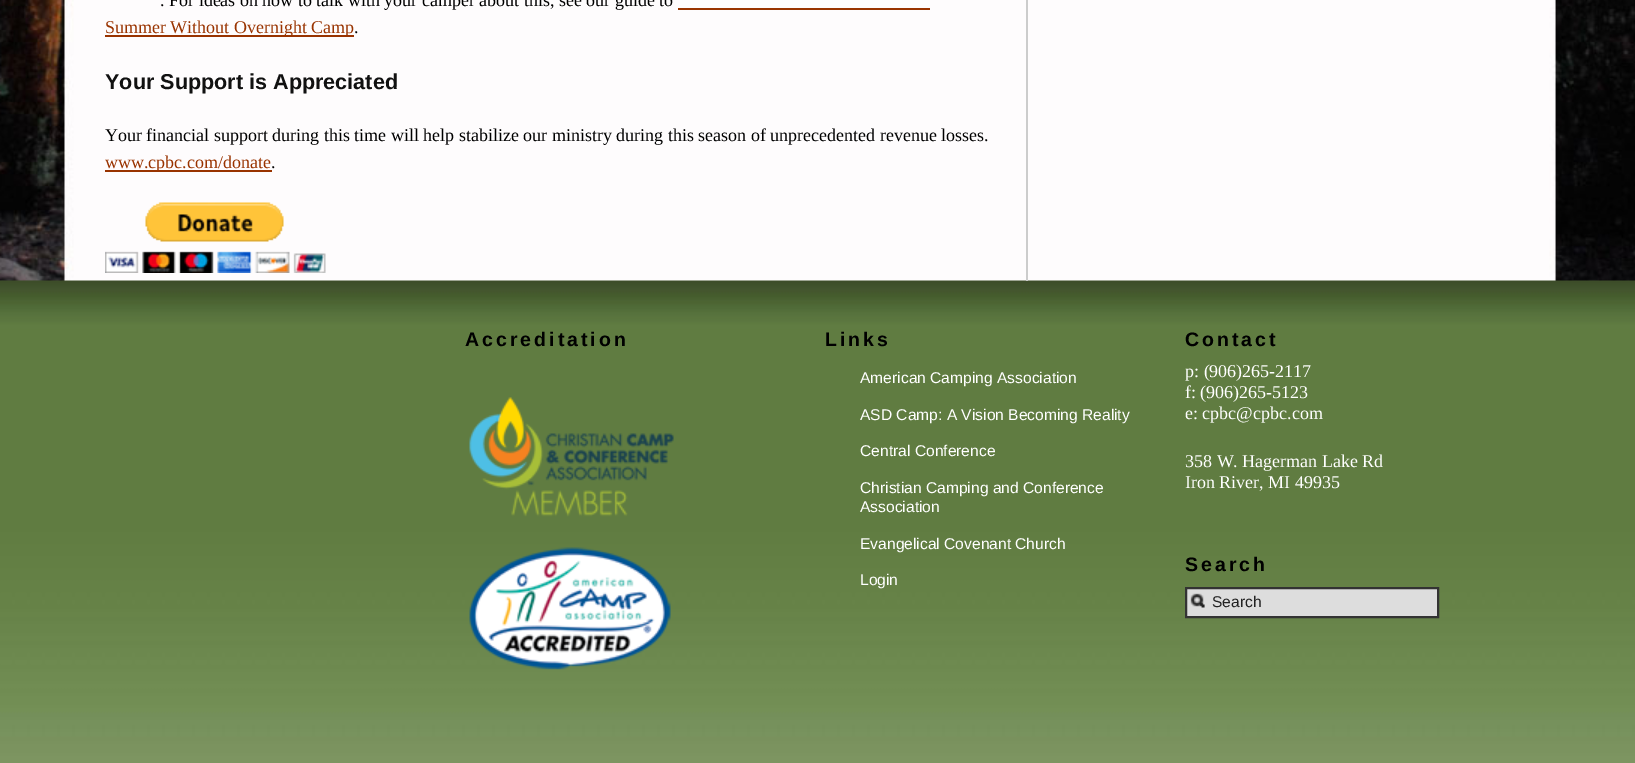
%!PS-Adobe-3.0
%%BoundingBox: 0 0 1635 763
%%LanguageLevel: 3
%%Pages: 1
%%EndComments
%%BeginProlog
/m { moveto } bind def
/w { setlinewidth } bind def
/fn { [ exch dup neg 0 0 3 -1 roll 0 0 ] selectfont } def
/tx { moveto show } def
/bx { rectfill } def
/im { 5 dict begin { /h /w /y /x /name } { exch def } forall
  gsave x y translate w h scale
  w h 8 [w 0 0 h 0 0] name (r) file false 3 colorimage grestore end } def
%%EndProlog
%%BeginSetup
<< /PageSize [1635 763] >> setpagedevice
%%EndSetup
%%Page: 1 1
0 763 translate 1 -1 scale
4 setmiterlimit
1 setgray
0 0 1635 763 bx
(image0.raw) 0 0 1635 281 im
(image2.raw) 0 280 1635 483 im
0.8 setgray
1026 0 2 281 bx
/LiberationSerif-Regular 18 fn
0 setgray
(. For ideas on how to talk with your camper about this, see our guide to) 160 6 tx
0.6 0.2 0 setrgbcolor
105 35 249 2 bx
(Summer Without Overnight Camp) 105 33 tx
678 8 252 2 bx
0 setgray
(.) 354 33 tx
/LiberationSans-Bold 21.6 fn
0.067 setgray
(Your Support is Appreciated) 105 89 tx
/LiberationSerif-Regular 18 fn
0 setgray
(Your financial support during this time will help stabilize our ministry during this season of unprecedented revenue losses.) 105 141 tx
0.6 0.2 0 setrgbcolor
105 170 167 2 bx
(www.cpbc.com/donate) 105 168 tx
0 setgray
(.) 271 168 tx
(image1.raw) 105 202 221 71 im
/LiberationSans-Bold 19.5 fn
465 346 m 3 0 (Accreditation) ashow
(image3.raw) 469 397 205 273 im
825 346 m 3 0 (Links) ashow
/LiberationSans-Regular 15.6 fn
1 setgray
(American Camping Association) 860 383 tx
(ASD Camp: A Vision Becoming Reality) 860 420 tx
(Central Conference) 860 456 tx
(Christian Camping and Conference) 860 493 tx
(Association) 860 512 tx
(Evangelical Covenant Church) 860 549 tx
(Login) 860 585 tx
/LiberationSans-Bold 19.5 fn
0 setgray
1185 346 m 3 0 (Contact) ashow
/LiberationSerif-Regular 18 fn
1 setgray
(p: \(906\)265-2117) 1185 377 tx
(f: \(906\)265-5123) 1185 398 tx
(e: cpbc@cpbc.com) 1185 419 tx
(358 W. Hagerman Lake Rd) 1185 467 tx
(Iron River, MI 49935) 1185 488 tx
/LiberationSans-Bold 19.5 fn
0 setgray
1185 571 m 3 0 (Search) ashow
0.867 setgray
1187 589 250 27 bx
(image4.raw) 1190 593 15 15 im
0.2 setgray
2 w
1186 588 252 29 rectstroke
/LiberationSans-Regular 15.6 fn
0.133 setgray
(Search) 1212 607 tx
showpage
%%EOF
